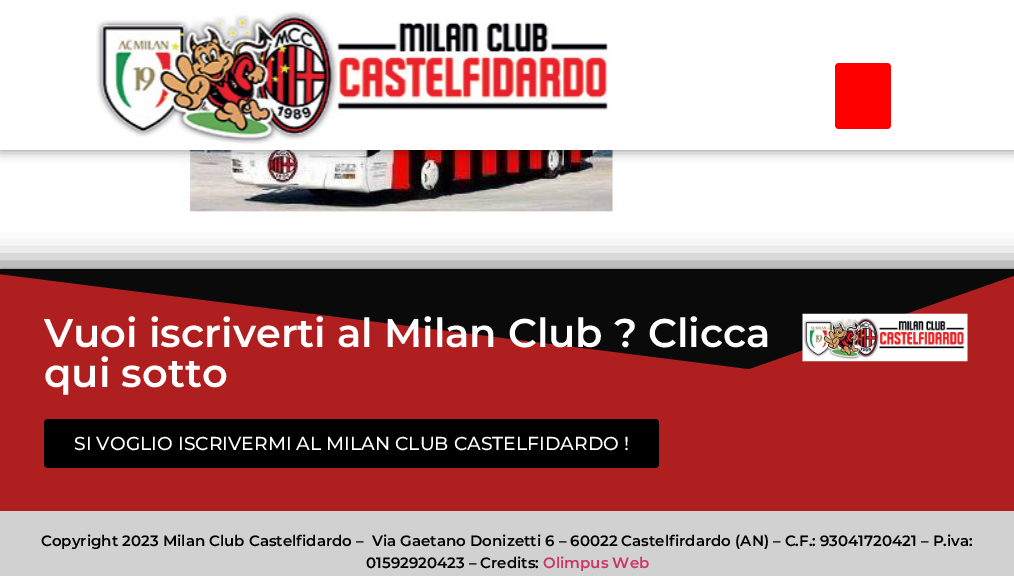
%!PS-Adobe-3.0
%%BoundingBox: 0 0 1014 576
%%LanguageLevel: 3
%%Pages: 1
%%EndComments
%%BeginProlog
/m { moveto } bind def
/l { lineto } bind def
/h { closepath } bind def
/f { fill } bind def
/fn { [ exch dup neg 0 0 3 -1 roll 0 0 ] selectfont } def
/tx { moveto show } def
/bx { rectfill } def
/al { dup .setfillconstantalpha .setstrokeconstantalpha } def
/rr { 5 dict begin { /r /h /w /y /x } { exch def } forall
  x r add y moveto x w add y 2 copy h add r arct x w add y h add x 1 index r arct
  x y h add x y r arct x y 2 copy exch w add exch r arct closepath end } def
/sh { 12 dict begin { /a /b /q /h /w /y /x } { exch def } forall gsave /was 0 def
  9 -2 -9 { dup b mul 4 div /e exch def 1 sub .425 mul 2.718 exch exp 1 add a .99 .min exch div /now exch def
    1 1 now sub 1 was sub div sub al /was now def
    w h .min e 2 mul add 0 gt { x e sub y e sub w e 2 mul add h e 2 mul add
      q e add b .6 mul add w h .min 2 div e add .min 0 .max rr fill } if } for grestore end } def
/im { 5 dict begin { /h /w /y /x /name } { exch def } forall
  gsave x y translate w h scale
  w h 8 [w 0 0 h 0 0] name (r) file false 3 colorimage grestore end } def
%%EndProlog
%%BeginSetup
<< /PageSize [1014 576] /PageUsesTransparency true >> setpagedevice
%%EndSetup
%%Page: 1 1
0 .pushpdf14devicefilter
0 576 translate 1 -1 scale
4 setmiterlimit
1 setgray
0 0 1014 576 bx
(image1.raw) 172 150 442 62 im
0 setgray
0 0 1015 150 0 6 0.5 sh
1 setgray
0 0 1014 150 bx
(image0.raw) 96 11 513 134 im
1 0 0 setrgbcolor
835 63 56 66 4 rr f
0 setgray
-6 264 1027 254 0 14.5 0.5 sh
0.69 0.122 0.122 setrgbcolor
0 274 1014 237 bx
0.039 setgray
749 369 m 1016 275 l 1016 269 l -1 269 l -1 274 l h f
/Montserrat-SemiBold 40 fn
1 setgray
(Vuoi iscriverti al Milan Club ? Clicca) 44 347 tx
(qui sotto) 44 387 tx
0 setgray
44 419 615 49 4 rr f
/Montserrat-Medium 18.75 fn
1 setgray
(SI VOGLIO ISCRIVERMI AL MILAN CLUB CASTELFIDARDO !) 74 450 tx
(image2.raw) 802 313 166 49 im
0.82 setgray
0 511 1014 65 bx
/Montserrat-SemiBold 15 fn
0 setgray
(Copyright 2023 Milan Club Castelfidardo –  Via Gaetano Donizetti 6 – 60022 Castelfirdardo \(AN\) – C.F.: 93041720421 – P.iva:) 41 546 tx
(01592920423 – Credits:) 366 568 tx
0.8 0.2 0.4 setrgbcolor
(Olimpus Web) 543 568 tx
.poppdf14devicefilter showpage
%%EOF
